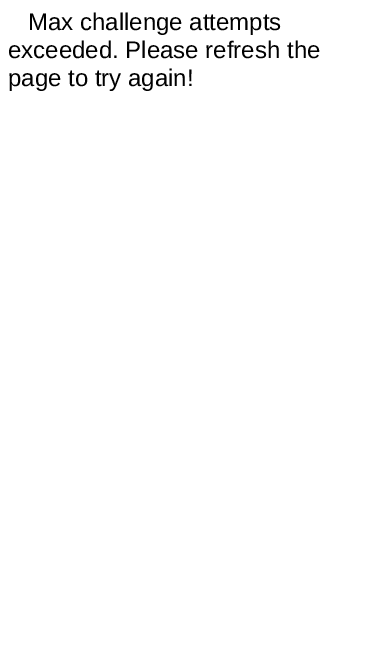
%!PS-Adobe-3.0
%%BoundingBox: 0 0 371 662
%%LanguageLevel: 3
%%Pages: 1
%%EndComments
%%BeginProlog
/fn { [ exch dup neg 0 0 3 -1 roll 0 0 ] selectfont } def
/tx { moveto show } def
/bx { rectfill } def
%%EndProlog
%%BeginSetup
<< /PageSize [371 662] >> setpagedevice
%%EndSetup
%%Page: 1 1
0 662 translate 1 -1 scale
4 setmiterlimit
1 setgray
0 0 371 662 bx
/LiberationSans-Regular 24 fn
0 setgray
(Max challenge attempts) 28 30 tx
(exceeded. Please refresh the) 8 58 tx
(page to try again!) 8 86 tx
showpage
%%EOF
